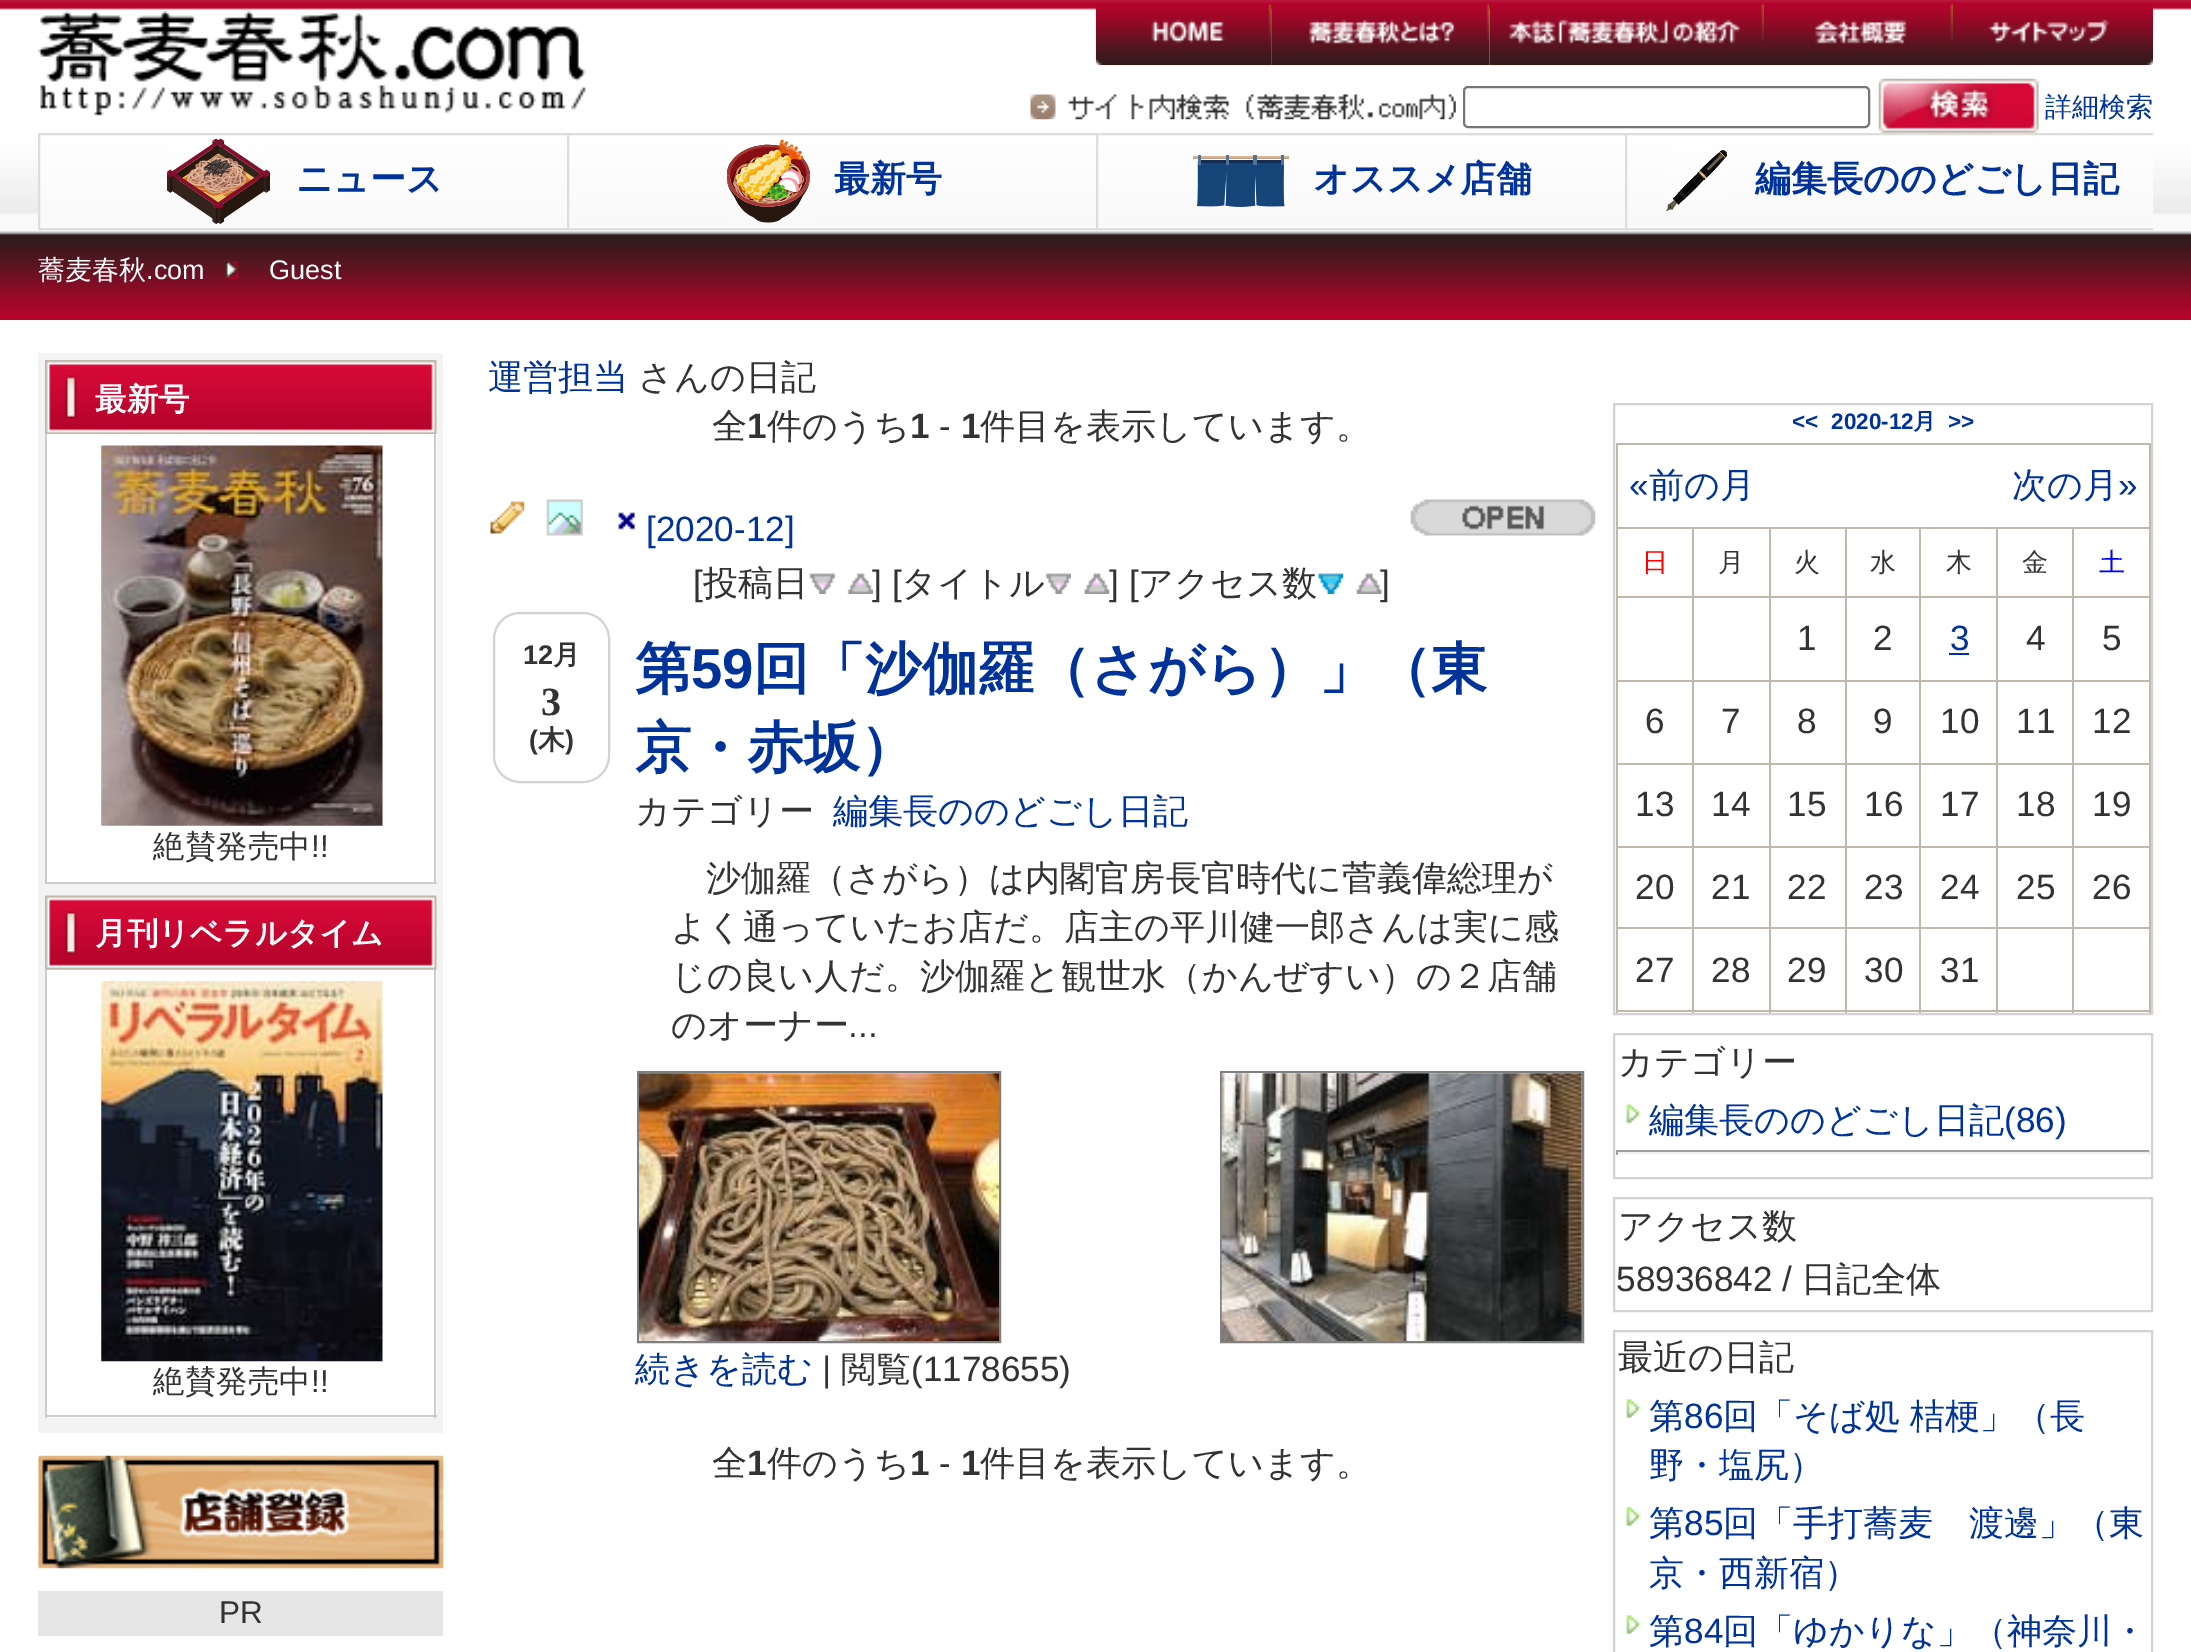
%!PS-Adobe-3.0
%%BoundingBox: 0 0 2191 1652
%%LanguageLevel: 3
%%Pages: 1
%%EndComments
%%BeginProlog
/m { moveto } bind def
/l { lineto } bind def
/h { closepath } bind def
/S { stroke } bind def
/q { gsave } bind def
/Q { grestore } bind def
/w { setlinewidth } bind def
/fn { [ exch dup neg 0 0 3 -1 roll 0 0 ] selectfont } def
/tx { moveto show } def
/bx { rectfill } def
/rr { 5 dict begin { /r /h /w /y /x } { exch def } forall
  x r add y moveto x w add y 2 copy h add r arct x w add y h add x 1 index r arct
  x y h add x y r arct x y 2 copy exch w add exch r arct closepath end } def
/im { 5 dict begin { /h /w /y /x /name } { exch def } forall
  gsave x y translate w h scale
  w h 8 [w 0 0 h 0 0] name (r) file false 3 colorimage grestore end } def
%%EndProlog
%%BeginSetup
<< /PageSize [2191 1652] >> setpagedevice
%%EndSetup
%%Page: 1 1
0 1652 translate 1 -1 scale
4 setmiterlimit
1 setgray
0 0 2191 1652 bx
0.702 0.016 0.169 setrgbcolor
0 314 2191 6 bx
(image0.raw) 0 0 2191 314 im
(image1.raw) 38 11 548 105 im
(image2.raw) 1095 4 177 62 im
(image3.raw) 1271 4 219 62 im
(image4.raw) 1489 4 275 62 im
(image5.raw) 1764 4 189 62 im
(image6.raw) 1953 4 200 62 im
(image7.raw) 1030 94 426 26 im
0.463 setgray
2 w
1464 87 405 40 4 rr S
0.937 setgray
1879 79 160 54 bx
(image8.raw) 1878 78 161 55 im
/WenQuanYiZenHei-Medium 27 fn
0 0.2 0.6 setrgbcolor
(詳細検索) 2045 116 tx
q 40 155 m 567 155 l 567 215 l 40 215 l h clip newpath
<< /ShadingType 2 /ColorSpace /DeviceRGB /Coords [305 135 305 227] /Extend [true true] /Function << /FunctionType 2 /Domain [0 1] /C0 [1 1 1] /C1 [0.976 0.976 0.976] /N 1 >> >> shfill Q
q 38 227 m 572 227 l 572 228 l 38 228 l h clip newpath
<< /ShadingType 2 /ColorSpace /DeviceRGB /Coords [305 227 305 320] /Extend [true true] /Function << /FunctionType 2 /Domain [0 1] /C0 [1 1 1] /C1 [0.976 0.976 0.976] /N 1 >> >> shfill Q
0.867 setgray
39 134 532 95 rectstroke
(image9.raw) 167 138 103 86 im
/WenQuanYiZenHei-Bold 36 fn
0 0.2 0.6 setrgbcolor
(ニュース) 296 191 tx
q 569 135 m 1096 135 l 1096 227 l 569 227 l h clip newpath
<< /ShadingType 2 /ColorSpace /DeviceRGB /Coords [834 135 834 227] /Extend [true true] /Function << /FunctionType 2 /Domain [0 1] /C0 [1 1 1] /C1 [0.976 0.976 0.976] /N 1 >> >> shfill Q
q 567 227 m 1100 227 l 1100 228 l 567 228 l h clip newpath
<< /ShadingType 2 /ColorSpace /DeviceRGB /Coords [834 227 834 320] /Extend [true true] /Function << /FunctionType 2 /Domain [0 1] /C0 [1 1 1] /C1 [0.976 0.976 0.976] /N 1 >> >> shfill Q
0.867 setgray
568 134 531 95 rectstroke
(image10.raw) 727 139 83 84 im
0 0.2 0.6 setrgbcolor
(最新号) 834 191 tx
q 1098 135 m 1625 135 l 1625 227 l 1098 227 l h clip newpath
<< /ShadingType 2 /ColorSpace /DeviceRGB /Coords [1362 135 1362 227] /Extend [true true] /Function << /FunctionType 2 /Domain [0 1] /C0 [1 1 1] /C1 [0.976 0.976 0.976] /N 1 >> >> shfill Q
q 1096 227 m 1629 227 l 1629 228 l 1096 228 l h clip newpath
<< /ShadingType 2 /ColorSpace /DeviceRGB /Coords [1362 227 1362 320] /Extend [true true] /Function << /FunctionType 2 /Domain [0 1] /C0 [1 1 1] /C1 [0.976 0.976 0.976] /N 1 >> >> shfill Q
0.867 setgray
1097 134 531 95 rectstroke
(image11.raw) 1193 155 96 52 im
0 0.2 0.6 setrgbcolor
(オススメ店舗) 1313 191 tx
q 1627 135 m 2153 135 l 2153 227 l 1627 227 l h clip newpath
<< /ShadingType 2 /ColorSpace /DeviceRGB /Coords [1891 135 1891 227] /Extend [true true] /Function << /FunctionType 2 /Domain [0 1] /C0 [1 1 1] /C1 [0.976 0.976 0.976] /N 1 >> >> shfill Q
q 1625 227 m 2153 227 l 2153 228 l 1625 228 l h clip newpath
<< /ShadingType 2 /ColorSpace /DeviceRGB /Coords [1891 227 1891 320] /Extend [true true] /Function << /FunctionType 2 /Domain [0 1] /C0 [1 1 1] /C1 [0.976 0.976 0.976] /N 1 >> >> shfill Q
q
38 0 2115 313 rectclip
0.867 setgray
1626 134 531 95 rectstroke
Q
(image12.raw) 1666 150 62 61 im
(編集長ののどごし日記) 1755 191 tx
/WenQuanYiZenHei-Medium 27 fn
1 setgray
(蕎麦春秋) 38 279 tx
/LiberationSans-Regular 27 fn
(.com) 146 279 tx
(image13.raw) 225 261 14 18 im
(Guest) 269 279 tx
0.953 setgray
38 353 405 1080 bx
(image14.raw) 45 360 392 74 im
/WenQuanYiZenHei-Bold 31.5 fn
1 setgray
(最新号) 95 410 tx
47 434 390 448 bx
0.8 setgray
434 434 2 450 bx
45 882 392 2 bx
45 434 2 450 bx
(image15.raw) 101 445 282 381 im
/WenQuanYiZenHei-Medium 31.5 fn
0.2 setgray
(絶賛発売中) 153 857 tx
/LiberationSans-Regular 31.5 fn
(!!) 311 857 tx
(image16.raw) 45 895 392 75 im
/WenQuanYiZenHei-Bold 31.5 fn
1 setgray
(月刊リベラルタイム) 95 944 tx
47 970 390 448 bx
0.8 setgray
434 970 2 448 bx
45 1415 392 2 bx
45 970 2 448 bx
(image17.raw) 101 981 282 381 im
/WenQuanYiZenHei-Medium 31.5 fn
0.2 setgray
(絶賛発売中) 153 1392 tx
/LiberationSans-Regular 31.5 fn
(!!) 311 1392 tx
(image18.raw) 38 1455 406 114 im
0.902 setgray
38 1591 405 45 bx
0.2 setgray
(PR) 219 1623 tx
/WenQuanYiZenHei-Medium 35.1 fn
0 0.2 0.6 setrgbcolor
(運営担当) 488 389 tx
0.2 setgray
(さんの日記) 638 389 tx
(全) 712 438 tx
/LiberationSans-Bold 35.1 fn
(1) 747 438 tx
/WenQuanYiZenHei-Medium 35.1 fn
(件のうち) 767 438 tx
/LiberationSans-Bold 35.1 fn
(1) 910 438 tx
/LiberationSans-Regular 35.1 fn
(-) 939 438 tx
/LiberationSans-Bold 35.1 fn
(1) 961 438 tx
/WenQuanYiZenHei-Medium 35.1 fn
(件目を表示しています。) 980 438 tx
(image19.raw) 490 501 35 33 im
(image20.raw) 546 499 37 37 im
(image21.raw) 618 512 18 18 im
/LiberationSans-Regular 35.1 fn
0 0.2 0.6 setrgbcolor
([2020-12]) 646 541 tx
(image22.raw) 1410 499 186 37 im
0.2 setgray
([) 693 595 tx
/WenQuanYiZenHei-Medium 35.1 fn
(投稿日) 703 595 tx
(image23.raw) 809 573 26 21 im
/LiberationSans-Regular 35.1 fn
(] [) 872 595 tx
(image24.raw) 847 573 26 21 im
/WenQuanYiZenHei-Medium 35.1 fn
(タイトル) 901 595 tx
(image25.raw) 1045 573 26 21 im
/LiberationSans-Regular 35.1 fn
(] [) 1109 595 tx
(image26.raw) 1084 573 26 21 im
/WenQuanYiZenHei-Medium 35.1 fn
(アクセス数) 1138 595 tx
(image27.raw) 1318 573 26 21 im
/LiberationSans-Regular 35.1 fn
(]) 1380 595 tx
(image28.raw) 1356 573 26 21 im
0.827 setgray
494 613 115 169 26 rr S
/LiberationSans-Bold 27 fn
0.2 setgray
(12) 523 664 tx
/WenQuanYiZenHei-Bold 27 fn
(月) 553 664 tx
/LiberationSerif-Bold 40 fn
(3) 541 715 tx
/LiberationSans-Bold 27 fn
(\() 529 749 tx
/WenQuanYiZenHei-Bold 27 fn
(木) 538 749 tx
/LiberationSans-Bold 27 fn
(\)) 565 749 tx
/WenQuanYiZenHei-Bold 56.2 fn
0 0.2 0.6 setrgbcolor
(第) 635 688 tx
/LiberationSans-Bold 56.2 fn
(59) 691 688 tx
/WenQuanYiZenHei-Bold 56.2 fn
(回「沙伽羅（さがら）」（東) 753 688 tx
(京・赤坂）) 635 767 tx
/WenQuanYiZenHei-Medium 35.1 fn
0.2 setgray
(カテゴリー) 635 823 tx
0 0.2 0.6 setrgbcolor
(編集長ののどごし日記) 833 823 tx
0.2 setgray
(沙伽羅（さがら）は内閣官房長官時代に菅義偉総理が) 706 890 tx
(よく通っていたお店だ。店主の平川健一郎さんは実に感) 671 939 tx
(じの良い人だ。沙伽羅と観世水（かんぜすい）の２店舗) 671 988 tx
(のオーナー) 671 1037 tx
/LiberationSans-Regular 35.1 fn
(...) 848 1037 tx
0.502 setgray
638 1072 362 270 rectstroke
(image29.raw) 639 1073 360 268 im
1221 1072 362 270 rectstroke
(image30.raw) 1221 1073 361 268 im
/WenQuanYiZenHei-Medium 35.1 fn
0 0.2 0.6 setrgbcolor
(続きを読む) 635 1381 tx
/LiberationSans-Regular 35.1 fn
0.2 setgray
(|) 822 1381 tx
/WenQuanYiZenHei-Medium 35.1 fn
(閲覧) 841 1381 tx
/LiberationSans-Regular 35.1 fn
(\(1178655\)) 911 1381 tx
/WenQuanYiZenHei-Medium 35.1 fn
(全) 712 1475 tx
/LiberationSans-Bold 35.1 fn
(1) 747 1475 tx
/WenQuanYiZenHei-Medium 35.1 fn
(件のうち) 767 1475 tx
/LiberationSans-Bold 35.1 fn
(1) 910 1475 tx
/LiberationSans-Regular 35.1 fn
(-) 939 1475 tx
/LiberationSans-Bold 35.1 fn
(1) 961 1475 tx
/WenQuanYiZenHei-Medium 35.1 fn
(件目を表示しています。) 980 1475 tx
0.827 setgray
1614 404 538 610 rectstroke
/LiberationSans-Bold 22.5 fn
0 0.2 0.6 setrgbcolor
(<<) 1792 429 tx
(2020-12) 1831 429 tx
/WenQuanYiZenHei-Bold 22.5 fn
(月) 1913 429 tx
/LiberationSans-Bold 22.5 fn
(>>) 1948 429 tx
0.757 0.718 0.671 setrgbcolor
1616 443 535 2 bx
2072 527 79 2 bx
2072 596 79 2 bx
2072 680 79 2 bx
2072 763 79 2 bx
2072 846 79 2 bx
2072 927 79 2 bx
2149 927 2 86 bx
2149 846 2 83 bx
2149 763 2 85 bx
2149 680 2 85 bx
2149 596 2 86 bx
2149 527 2 72 bx
2149 443 2 86 bx
2072 1010 79 2 bx
2072 927 2 86 bx
1996 927 79 2 bx
2072 846 2 83 bx
1996 846 79 2 bx
2072 763 2 85 bx
1996 763 79 2 bx
2072 680 2 85 bx
1996 680 79 2 bx
2072 596 2 86 bx
1996 596 79 2 bx
2072 527 2 72 bx
1996 527 79 2 bx
1996 1010 79 2 bx
1996 927 2 86 bx
1919 927 79 2 bx
1996 846 2 83 bx
1919 846 79 2 bx
1996 763 2 85 bx
1919 763 79 2 bx
1996 680 2 85 bx
1919 680 79 2 bx
1996 596 2 86 bx
1919 596 79 2 bx
1996 527 2 72 bx
1919 527 79 2 bx
1919 1010 79 2 bx
1919 927 2 86 bx
1845 927 77 2 bx
1919 846 2 83 bx
1845 846 77 2 bx
1919 763 2 85 bx
1845 763 77 2 bx
1919 680 2 85 bx
1845 680 77 2 bx
1919 596 2 86 bx
1845 596 77 2 bx
1919 527 2 72 bx
1845 527 77 2 bx
1845 1010 77 2 bx
1845 927 2 86 bx
1769 927 78 2 bx
1845 846 2 83 bx
1769 846 78 2 bx
1845 763 2 85 bx
1769 763 78 2 bx
1845 680 2 85 bx
1769 680 78 2 bx
1845 596 2 86 bx
1769 596 78 2 bx
1845 527 2 72 bx
1769 527 78 2 bx
1769 1010 78 2 bx
1769 927 2 86 bx
1692 927 79 2 bx
1769 846 2 83 bx
1692 846 79 2 bx
1769 763 2 85 bx
1692 763 79 2 bx
1769 680 2 85 bx
1692 680 79 2 bx
1769 596 2 86 bx
1692 596 79 2 bx
1769 527 2 72 bx
1692 527 79 2 bx
1692 1010 79 2 bx
1692 927 2 86 bx
1616 927 78 2 bx
1692 846 2 83 bx
1616 846 78 2 bx
1692 763 2 85 bx
1616 763 78 2 bx
1692 680 2 85 bx
1616 680 78 2 bx
1692 596 2 86 bx
1616 596 78 2 bx
1692 527 2 72 bx
1616 527 78 2 bx
1616 1010 78 2 bx
1616 927 2 86 bx
1616 846 2 83 bx
1616 763 2 85 bx
1616 680 2 85 bx
1616 596 2 86 bx
1616 527 2 72 bx
1616 443 2 86 bx
/LiberationSans-Regular 35.1 fn
0 0.2 0.6 setrgbcolor
(«) 1629 497 tx
/WenQuanYiZenHei-Medium 35.1 fn
(前の月) 1649 497 tx
(次の月) 2012 497 tx
/LiberationSans-Regular 35.1 fn
(») 2118 497 tx
/WenQuanYiZenHei-Medium 26 fn
1 0 0 setrgbcolor
(日) 1642 571 tx
0.2 setgray
(月) 1718 571 tx
(火) 1794 571 tx
(水) 1870 571 tx
(木) 1946 571 tx
(金) 2022 571 tx
0 0 1 setrgbcolor
(土) 2099 571 tx
/LiberationSans-Regular 35.1 fn
0.2 setgray
(1) 1797 650 tx
(2) 1873 650 tx
0 0.2 0.6 setrgbcolor
(3) 1950 650 tx
1949 653 20 2 bx
0.2 setgray
(4) 2026 650 tx
(5) 2102 650 tx
(6) 1645 733 tx
(7) 1721 733 tx
(8) 1797 733 tx
(9) 1873 733 tx
(10) 1940 733 tx
(11) 2016 733 tx
(12) 2092 733 tx
(13) 1635 816 tx
(14) 1711 816 tx
(15) 1787 816 tx
(16) 1864 816 tx
(17) 1940 816 tx
(18) 2016 816 tx
(19) 2092 816 tx
(20) 1635 899 tx
(21) 1711 899 tx
(22) 1787 899 tx
(23) 1864 899 tx
(24) 1940 899 tx
(25) 2016 899 tx
(26) 2092 899 tx
(27) 1635 982 tx
(28) 1711 982 tx
(29) 1787 982 tx
(30) 1864 982 tx
(31) 1940 982 tx
0.827 setgray
1614 1034 538 144 rectstroke
/WenQuanYiZenHei-Medium 35.1 fn
0.2 setgray
(カテゴリー) 1618 1074 tx
(image31.raw) 1626 1102 15 22 im
0 0.2 0.6 setrgbcolor
(編集長ののどごし日記) 1649 1132 tx
/LiberationSans-Regular 35.1 fn
(\(86\)) 2004 1132 tx
0.624 setgray
1616 1150 535 2 bx
0.933 setgray
2149 1150 2 5 bx
1616 1152 535 2 bx
0.624 setgray
1616 1150 2 5 bx
0.827 setgray
1614 1198 538 113 rectstroke
/WenQuanYiZenHei-Medium 35.1 fn
0.2 setgray
(アクセス数) 1618 1238 tx
/LiberationSans-Regular 35.1 fn
(58936842 /) 1616 1291 tx
/WenQuanYiZenHei-Medium 35.1 fn
(日記全体) 1801 1291 tx
0.827 setgray
1614 1331 538 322 rectstroke
0.2 setgray
(最近の日記) 1618 1369 tx
(image32.raw) 1626 1397 15 22 im
0 0.2 0.6 setrgbcolor
(第) 1649 1428 tx
/LiberationSans-Regular 35.1 fn
(86) 1684 1428 tx
/WenQuanYiZenHei-Medium 35.1 fn
1723 1428 m -1 0 32 (回「そば処 桔梗」（長) widthshow
(野・塩尻）) 1649 1477 tx
(image32.raw) 1626 1505 15 22 im
(第) 1649 1535 tx
/LiberationSans-Regular 35.1 fn
(85) 1684 1535 tx
/WenQuanYiZenHei-Medium 35.1 fn
(回「手打蕎麦　渡邊」（東) 1723 1535 tx
(京・西新宿）) 1649 1585 tx
(image32.raw) 1626 1613 15 22 im
(第) 1649 1643 tx
/LiberationSans-Regular 35.1 fn
(84) 1684 1643 tx
/WenQuanYiZenHei-Medium 35.1 fn
(回「ゆかりな」（神奈川・) 1723 1643 tx
showpage
%%EOF
